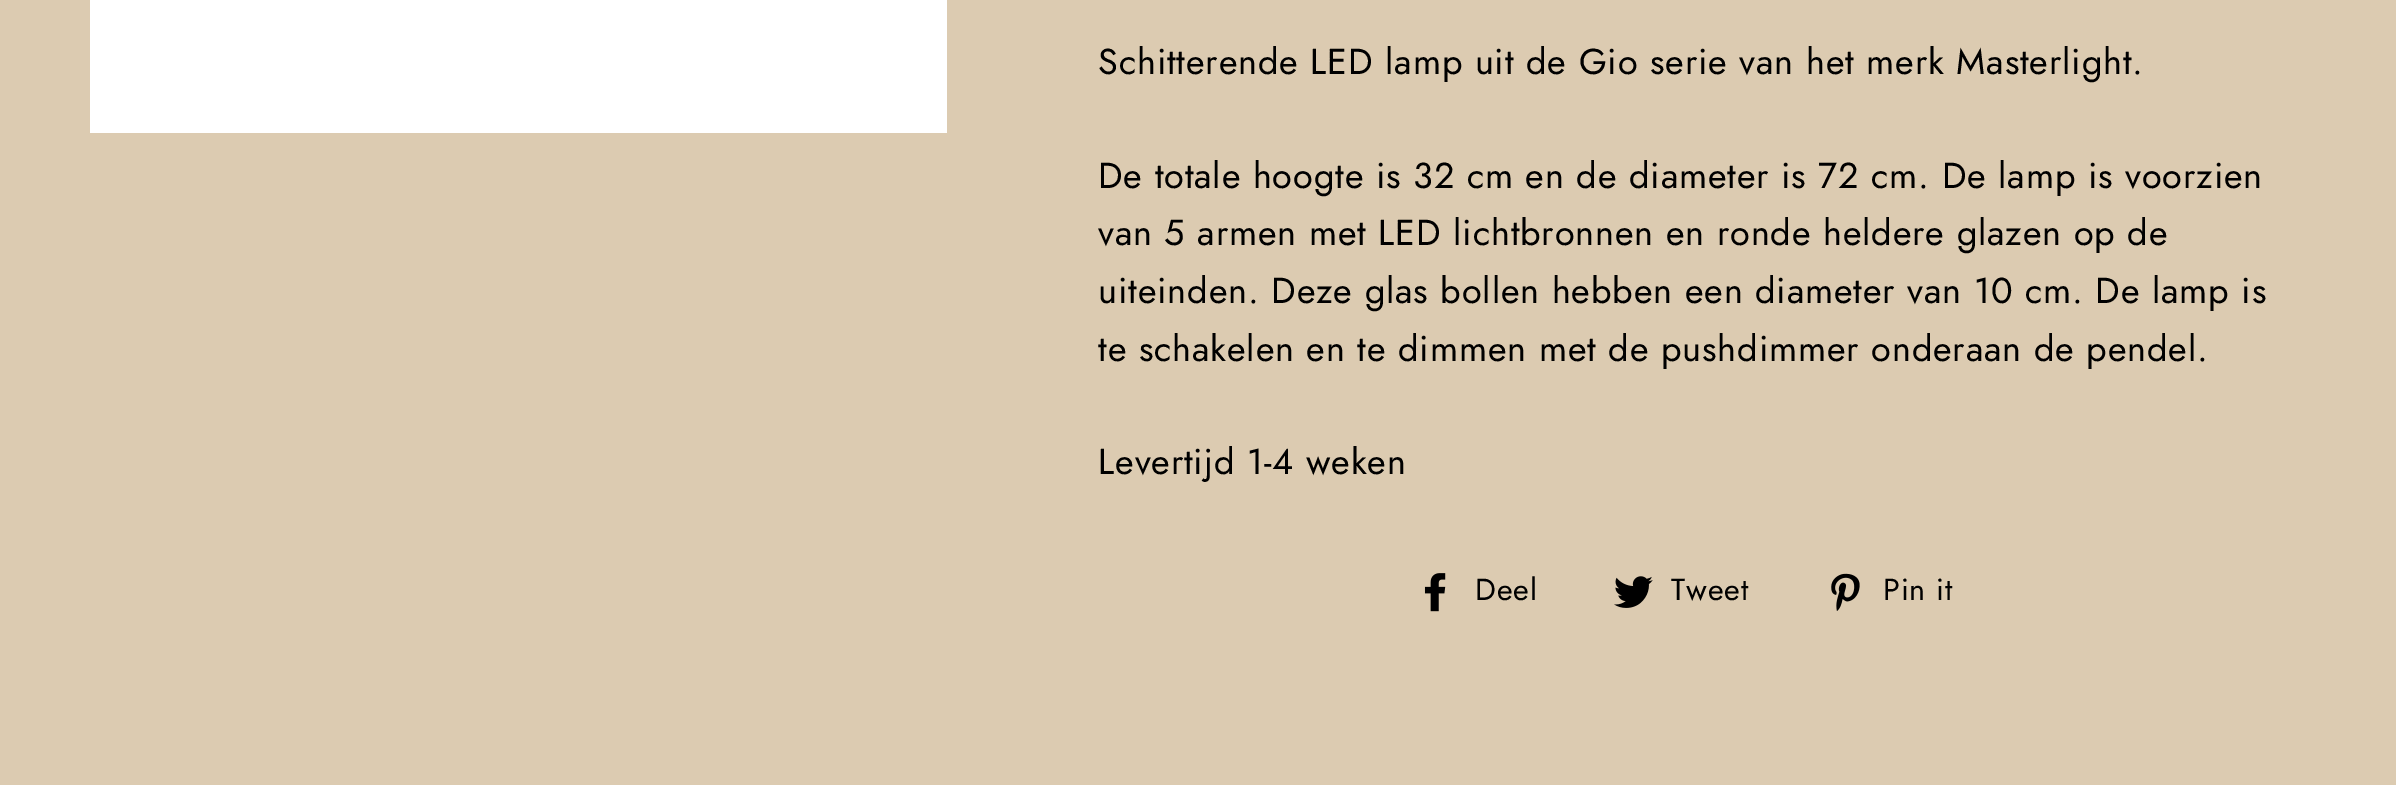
%!PS-Adobe-3.0
%%BoundingBox: 0 0 2396 800
%%LanguageLevel: 3
%%Pages: 1
%%EndComments
%%BeginProlog
/m { moveto } bind def
/fn { [ exch dup neg 0 0 3 -1 roll 0 0 ] selectfont } def
/bx { rectfill } def
/im { 5 dict begin { /h /w /y /x /name } { exch def } forall
  gsave x y translate w h scale
  w h 8 [w 0 0 h 0 0] name (r) file false 3 colorimage grestore end } def
%%EndProlog
%%BeginSetup
<< /PageSize [2396 800] >> setpagedevice
%%EndSetup
%%Page: 1 1
0 800 translate 1 -1 scale
4 setmiterlimit
0.863 0.796 0.694 setrgbcolor
0 0 2396 800 bx
1 setgray
90 0 857 133 bx
/Jost-Regular 36 fn
0 setgray
1098 74 m 0.9 0 (Schitterende LED lamp uit de Gio serie van het merk Masterlight.) ashow
1098 188 m 0.9 0 (De totale hoogte is 32 cm en de diameter is 72 cm. De lamp is voorzien) ashow
1098 245 m 0.9 0 (van 5 armen met LED lichtbronnen en ronde heldere glazen op de) ashow
1098 303 m 0.9 0 (uiteinden. Deze glas bollen hebben een diameter van 10 cm. De lamp is) ashow
1098 361 m 0.9 0 (te schakelen en te dimmen met de pushdimmer onderaan de pendel.) ashow
1098 474 m 0.9 0 (Levertijd 1-4 weken) ashow
(image0.raw) 1424 573 22 39 im
/Jost-Regular 30.5 fn
1475 600 m 0.9 0 (Deel) ashow
(image1.raw) 1614 576 39 32 im
1671 600 m 0.9 0 (Tweet) ashow
(image2.raw) 1831 573 29 38 im
1883 600 m 0.9 0 (Pin it) ashow
1 setgray
0 785 2396 15 bx
showpage
%%EOF
